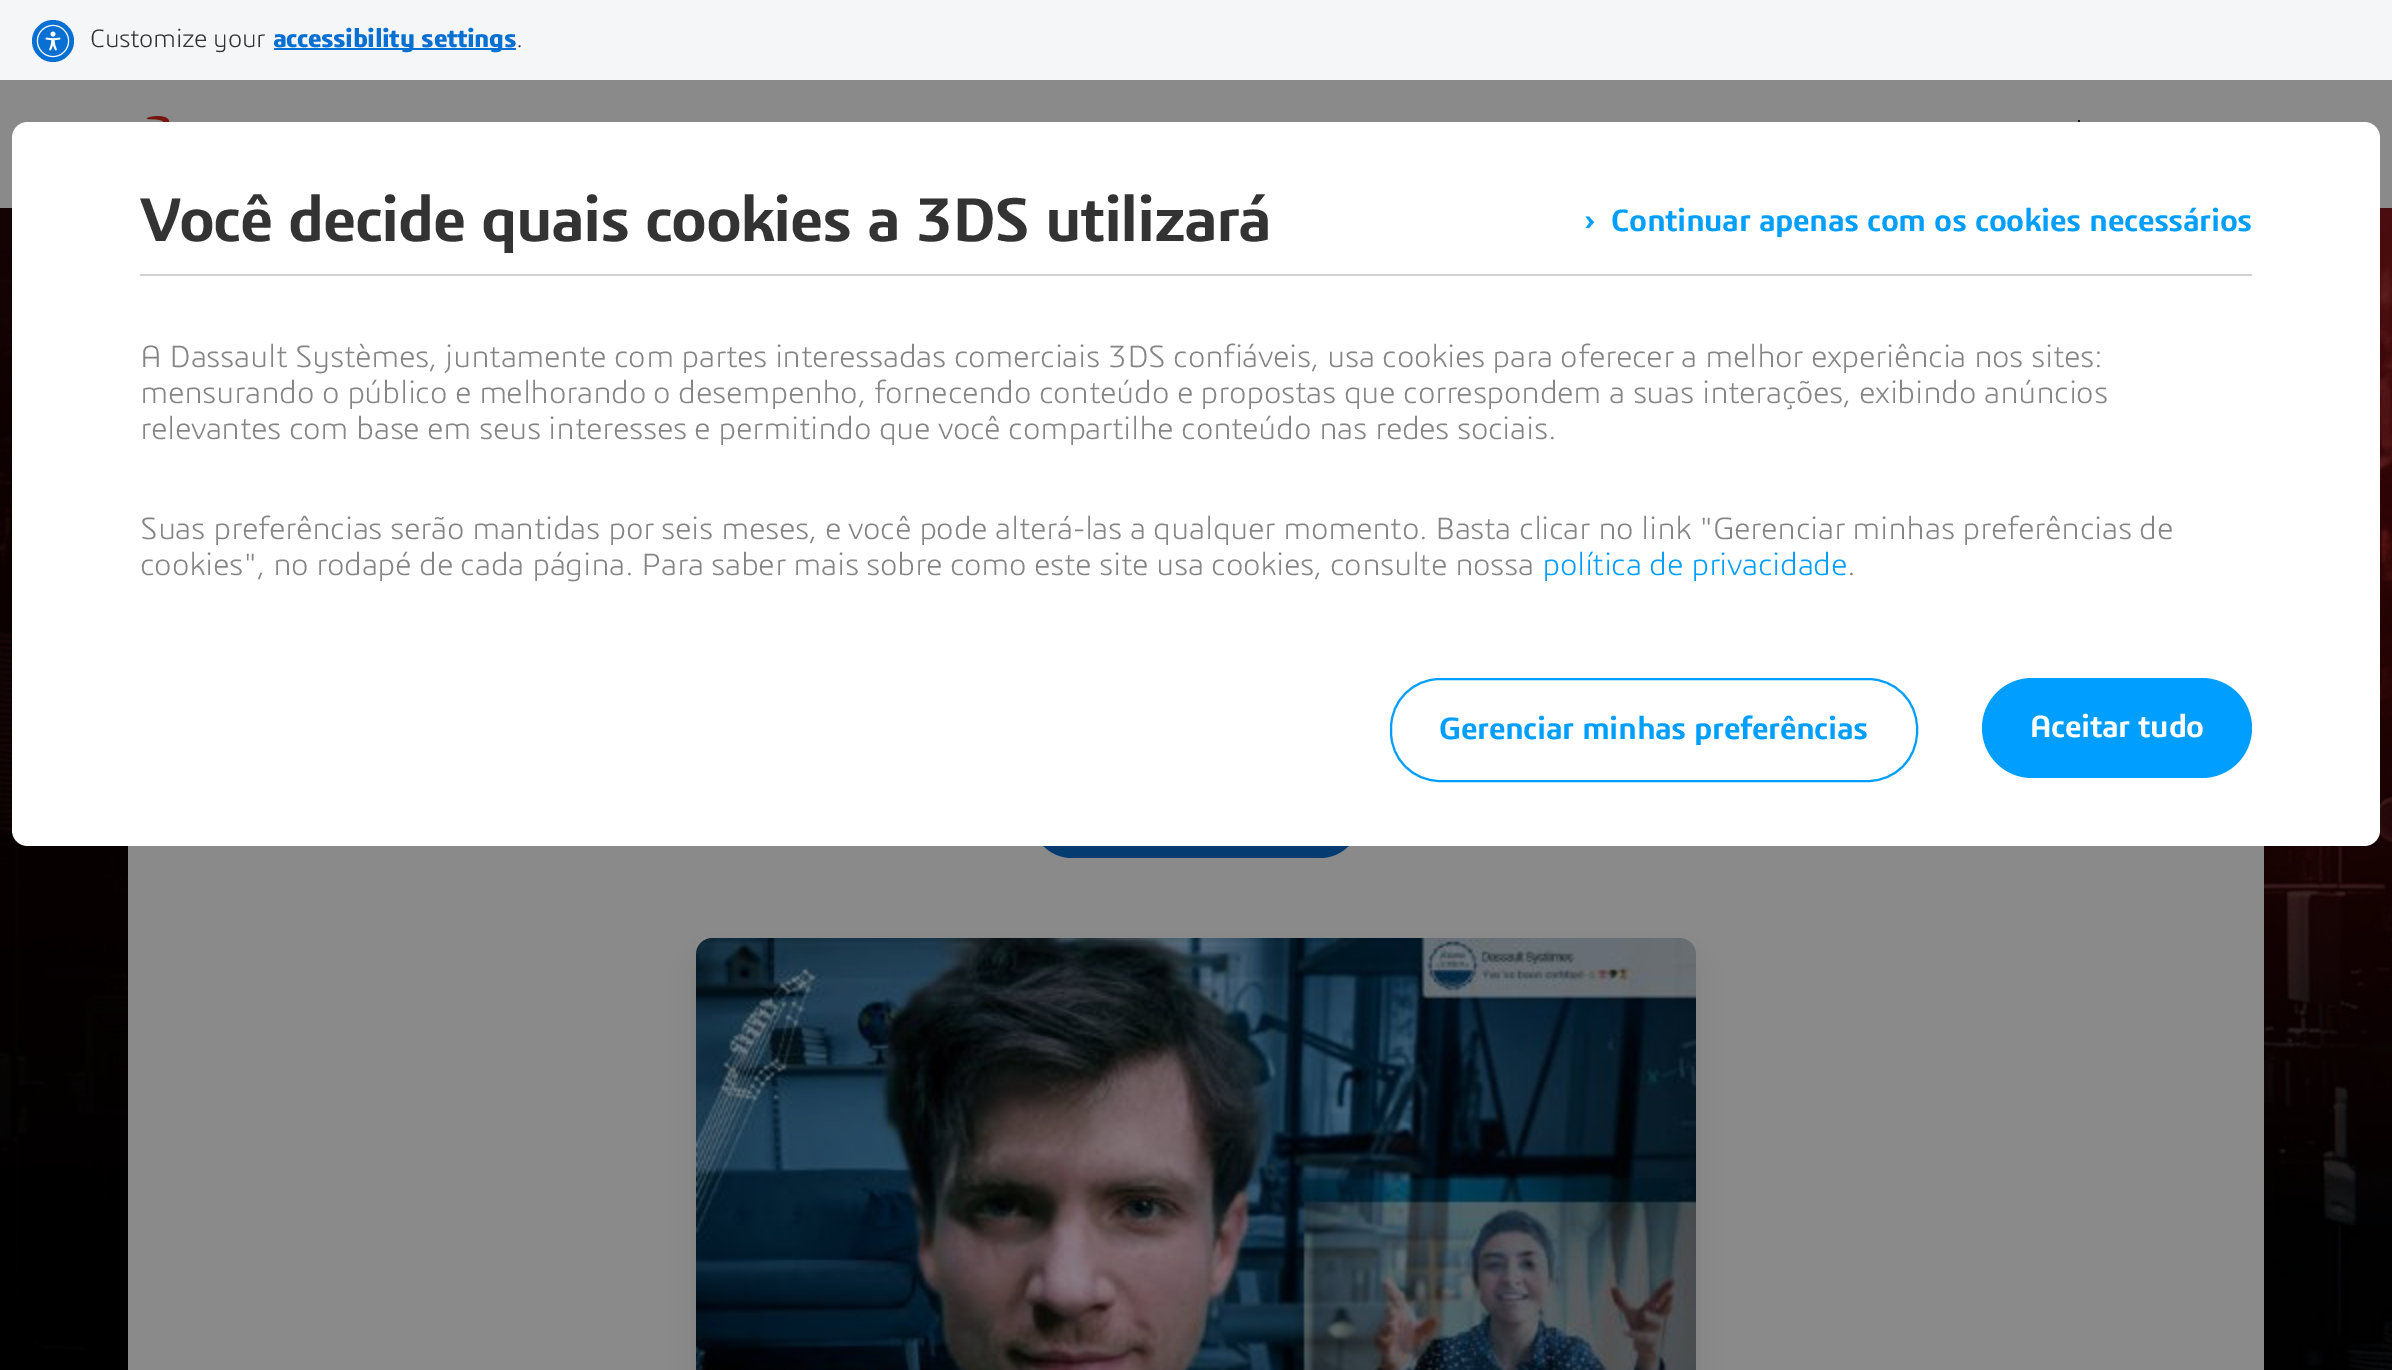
%!PS-Adobe-3.0
%%BoundingBox: 0 0 2392 1370
%%LanguageLevel: 3
%%Pages: 1
%%EndComments
%%BeginProlog
/m { moveto } bind def
/l { lineto } bind def
/c { curveto } bind def
/h { closepath } bind def
/f { fill } bind def
/S { stroke } bind def
/w { setlinewidth } bind def
/fn { [ exch dup neg 0 0 3 -1 roll 0 0 ] selectfont } def
/bx { rectfill } def
/al { dup .setfillconstantalpha .setstrokeconstantalpha } def
/ci { newpath 0 360 arc closepath } def
/rr { 5 dict begin { /r /h /w /y /x } { exch def } forall
  x r add y moveto x w add y 2 copy h add r arct x w add y h add x 1 index r arct
  x y h add x y r arct x y 2 copy exch w add exch r arct closepath end } def
/sh { 12 dict begin { /a /b /q /h /w /y /x } { exch def } forall gsave /was 0 def
  9 -2 -9 { dup b mul 4 div /e exch def 1 sub .425 mul 2.718 exch exp 1 add a .99 .min exch div /now exch def
    1 1 now sub 1 was sub div sub al /was now def
    w h .min e 2 mul add 0 gt { x e sub y e sub w e 2 mul add h e 2 mul add
      q e add b .6 mul add w h .min 2 div e add .min 0 .max rr fill } if } for grestore end } def
/im { 5 dict begin { /h /w /y /x /name } { exch def } forall
  gsave x y translate w h scale
  w h 8 [w 0 0 h 0 0] name (r) file false 3 colorimage grestore end } def
%%EndProlog
%%BeginSetup
<< /PageSize [2392 1370] /PageUsesTransparency true >> setpagedevice
%%EndSetup
%%Page: 1 1
0 .pushpdf14devicefilter
0 1370 translate 1 -1 scale
4 setmiterlimit
0.541 setgray
0 0 2392 1370 bx
0.957 0.965 0.973 setrgbcolor
0 0 2392 80 bx
0.031 0.439 0.827 setrgbcolor
53 41 21 ci f
(image0.raw) 36 24 34 34 im
/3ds-Light 26 fn
0.2 setgray
90 47 m -0.4 0 (Customize your) ashow
0.031 0.439 0.827 setrgbcolor
274 48 242 2 bx
/3ds-Bold 26 fn
273 47 m -0.4 0 (accessibility settings) ashow
/3ds-Light 26 fn
0.2 setgray
516 47 m -0.4 0 (.) ashow
(image1.raw) 146 116 24 6 im
0.11 setgray
2078 120 2 2 bx
(image2.raw) 0 208 2392 1162 im
1 setgray
28 122 m 2364 122 l 2373 122 2380 129 2380 138 c 2380 648 l 12 648 l 12 138 l 12 129 19 122 28 122 c h f
0.82 setgray
140 274 2112 2 bx
/3ds-SemiBold 64 fn
0.2 setgray
140 241 m -1.6 0 (Você decide quais cookies a 3DS utilizará) ashow
/3ds-SemiBold 32 fn
0 0.62 1 setrgbcolor
1584 231 m -0.4 0 (›) ashow
1611 231 m -0.4 0 (Continuar apenas com os cookies necessários) ashow
/3ds-Light 32 fn
0.522 setgray
140 367 m -0.4 0 (A Dassault Systèmes, juntamente com partes interessadas comerciais 3DS confiáveis, usa cookies para oferecer a melhor experiência nos sites:) ashow
140 403 m -0.4 0 (mensurando o público e melhorando o desempenho, fornecendo conteúdo e propostas que correspondem a suas interações, exibindo anúncios) ashow
140 439 m -0.4 0 (relevantes com base em seus interesses e permitindo que você compartilhe conteúdo nas redes sociais.) ashow
140 539 m -0.4 0 (Suas preferências serão mantidas por seis meses, e você pode alterá-las a qualquer momento. Basta clicar no link "Gerenciar minhas preferências de) ashow
140 575 m -0.4 0 (cookies", no rodapé de cada página. Para saber mais sobre como este site usa cookies, consulte nossa) ashow
0 0.62 1 setrgbcolor
1542 575 m -0.4 0 (política de privacidade) ashow
0.522 setgray
1847 575 m -0.4 0 (.) ashow
0.541 setgray
128 846 2136 524 bx
0.016 0.235 0.447 setrgbcolor
1032 778 328 80 40 rr f
1 setgray
12 648 m 2380 648 l 2380 830 l 2380 839 2373 846 2364 846 c 28 846 l 19 846 12 839 12 830 c h f
0 0.62 1 setrgbcolor
2 w
1391 679 526 102 49 rr S
/3ds-SemiBold 32 fn
1439 739 m -0.4 0 (Gerenciar minhas preferências) ashow
1982 678 270 100 50 rr f
1 setgray
2030 737 m -0.4 0 (Aceitar tudo) ashow
0 setgray
702 964 988 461 10 15 0.1 sh
(image3.raw) 696 938 1000 432 im
.poppdf14devicefilter showpage
%%EOF
